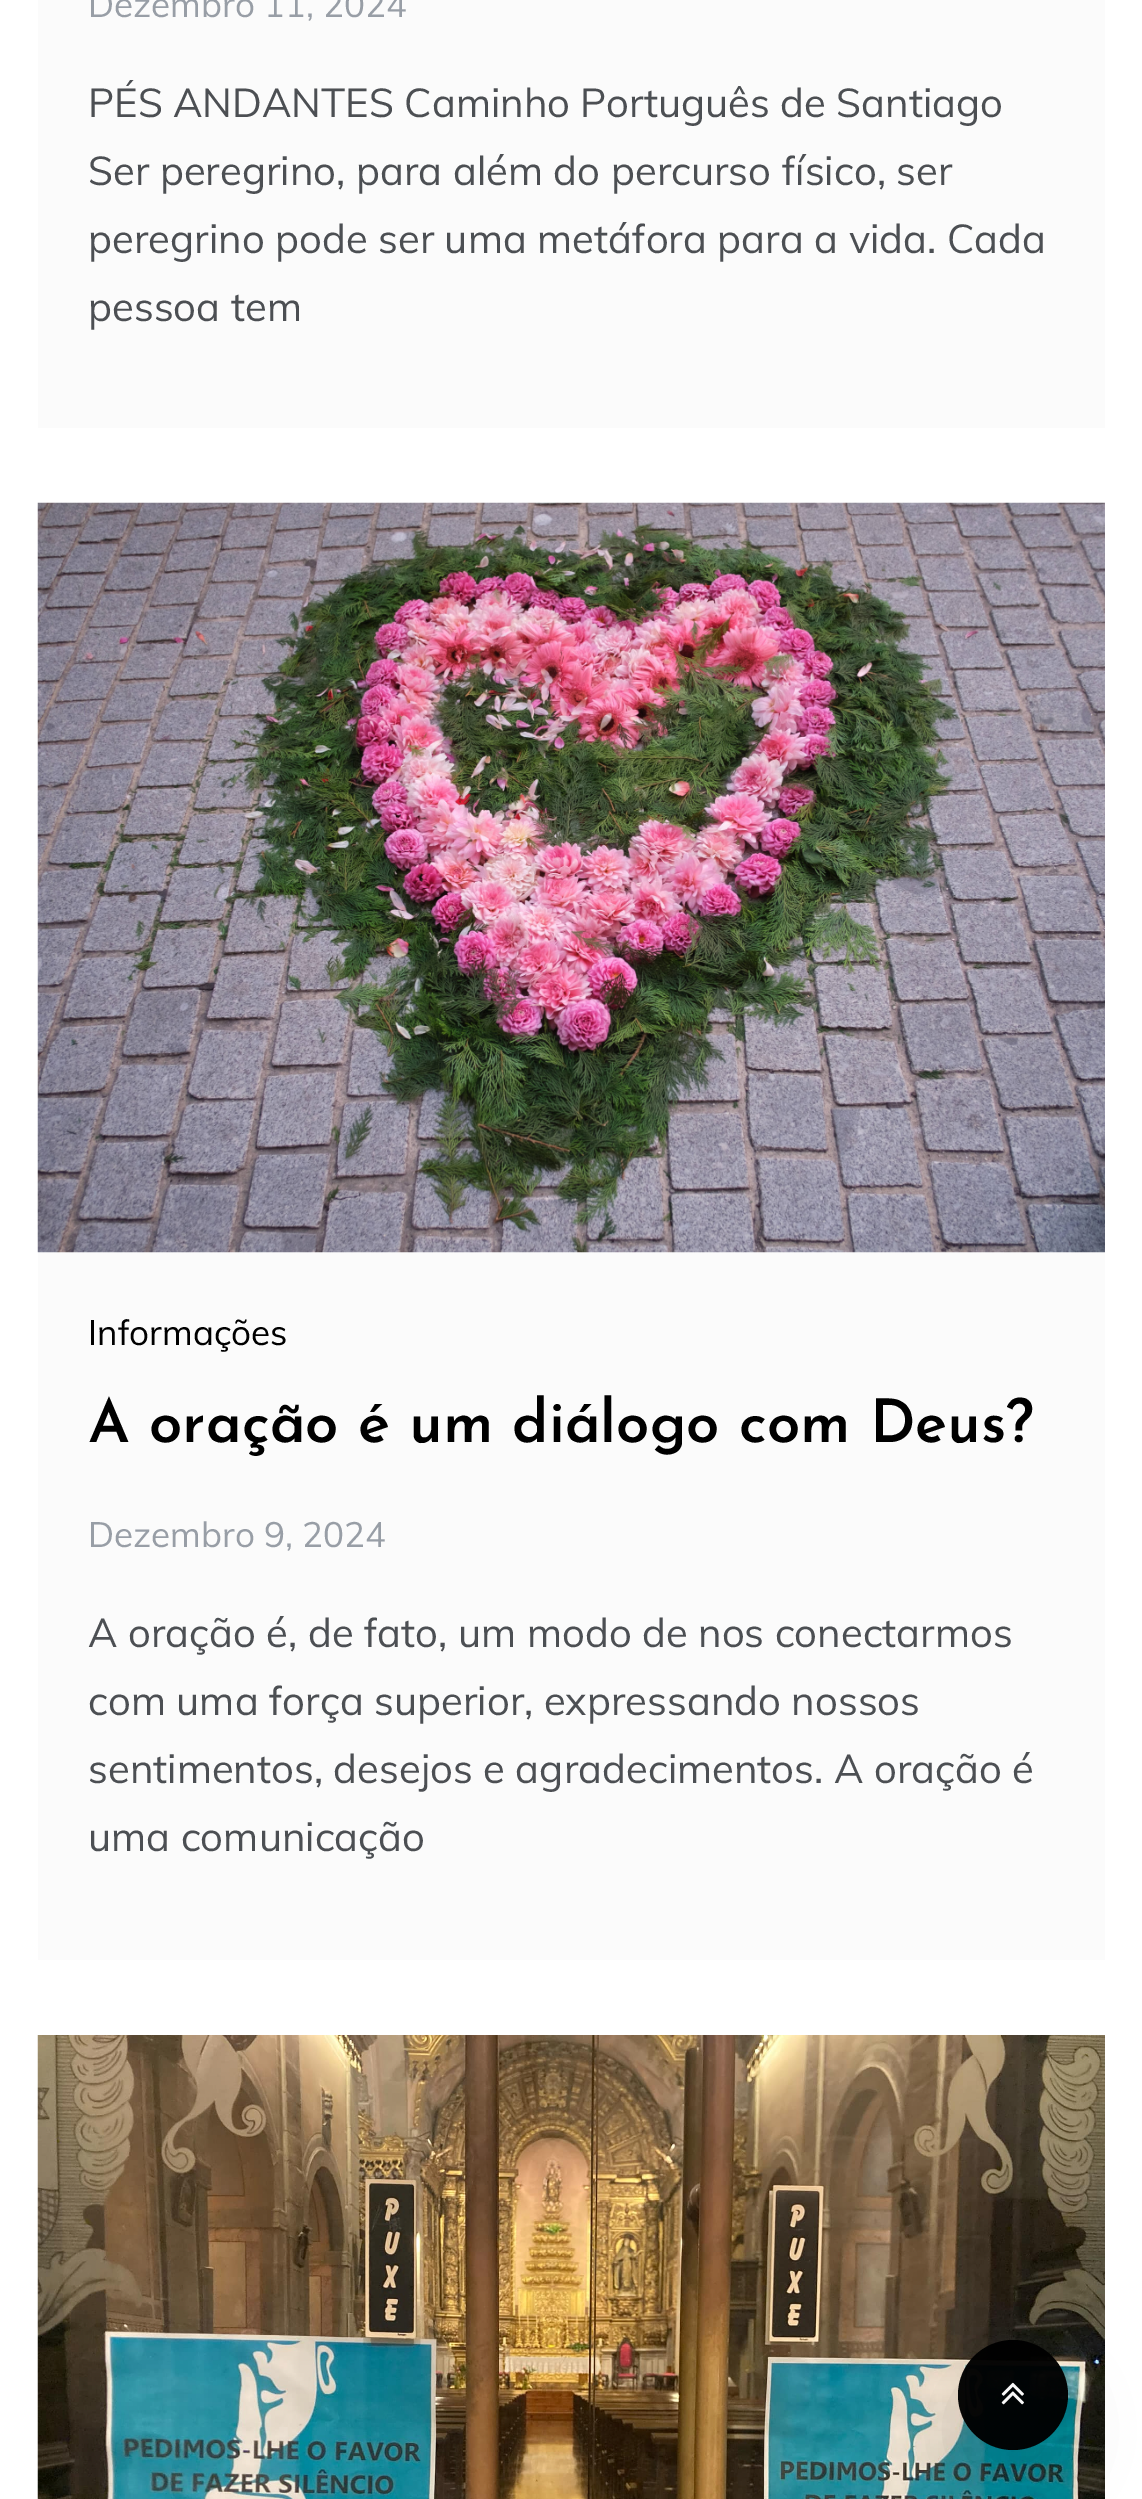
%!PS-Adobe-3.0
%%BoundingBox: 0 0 1142 2499
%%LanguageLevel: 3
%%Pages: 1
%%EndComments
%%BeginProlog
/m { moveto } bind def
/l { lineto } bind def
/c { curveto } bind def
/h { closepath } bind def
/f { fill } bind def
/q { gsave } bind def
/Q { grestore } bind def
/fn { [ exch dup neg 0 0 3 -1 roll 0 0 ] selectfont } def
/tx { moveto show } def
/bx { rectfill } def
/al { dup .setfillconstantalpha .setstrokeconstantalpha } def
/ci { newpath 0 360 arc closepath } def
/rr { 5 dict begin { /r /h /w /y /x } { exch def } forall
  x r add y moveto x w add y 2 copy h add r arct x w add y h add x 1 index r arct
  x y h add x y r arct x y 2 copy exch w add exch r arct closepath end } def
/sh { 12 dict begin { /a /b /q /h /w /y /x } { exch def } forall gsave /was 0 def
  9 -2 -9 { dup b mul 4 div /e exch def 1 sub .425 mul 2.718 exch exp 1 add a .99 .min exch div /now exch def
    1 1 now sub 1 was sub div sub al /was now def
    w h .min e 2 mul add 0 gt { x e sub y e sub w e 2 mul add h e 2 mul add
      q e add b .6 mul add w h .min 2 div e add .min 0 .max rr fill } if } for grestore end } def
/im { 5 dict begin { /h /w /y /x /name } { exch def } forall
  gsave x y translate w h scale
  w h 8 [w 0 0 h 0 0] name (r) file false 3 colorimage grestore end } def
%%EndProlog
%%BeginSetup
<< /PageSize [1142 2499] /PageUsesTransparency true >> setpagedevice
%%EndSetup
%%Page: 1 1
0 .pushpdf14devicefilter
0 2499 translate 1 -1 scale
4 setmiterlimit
1 setgray
0 0 1142 2499 bx
0.984 setgray
38 0 1067 428 bx
/Muli-Regular 35 fn
0.596 0.62 0.651 setrgbcolor
(Dezembro 11, 2024) 88 17 tx
/Muli-Regular 40 fn
0.298 0.31 0.325 setrgbcolor
(PÉS ANDANTES Caminho Português de Santiago) 88 117 tx
(Ser peregrino, para além do percurso físico, ser) 88 185 tx
(peregrino pode ser uma metáfora para a vida. Cada) 88 253 tx
(pessoa tem) 88 321 tx
0.984 setgray
38 1252 1067 708 bx
(image0.raw) 37 502 1068 751 im
/Muli-Regular 35 fn
0 setgray
(Informações) 88 1345 tx
/JosefinSans-SemiBold 60 fn
(A oração é um diálogo com Deus?) 88 1442 tx
/Muli-Regular 35 fn
0.596 0.62 0.651 setrgbcolor
(Dezembro 9, 2024) 88 1547 tx
/Muli-Regular 40 fn
0.298 0.31 0.325 setrgbcolor
(A oração é, de fato, um modo de nos conectarmos) 88 1647 tx
(com uma força superior, expressando nossos) 88 1715 tx
(sentimentos, desejos e agradecimentos. A oração é) 88 1783 tx
(uma comunicação) 88 1851 tx
(image1.raw) 37 2035 1068 464 im
q
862 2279 m 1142 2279 l 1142 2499 l 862 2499 l h 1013 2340 m 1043.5 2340 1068 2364.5 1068 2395 c 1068 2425.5 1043.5 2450 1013 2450 c 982.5 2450 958 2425.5 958 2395 c 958 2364.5 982.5 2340 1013 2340 c h eoclip newpath
0.055 0.067 0.078 setrgbcolor
968 2385 90 90 45 35 0.15 sh
Q
0.97 al
0 setgray
1013 2395 55 ci f
1 al
(image2.raw) 1001 2382 23 23 im
.poppdf14devicefilter showpage
%%EOF
